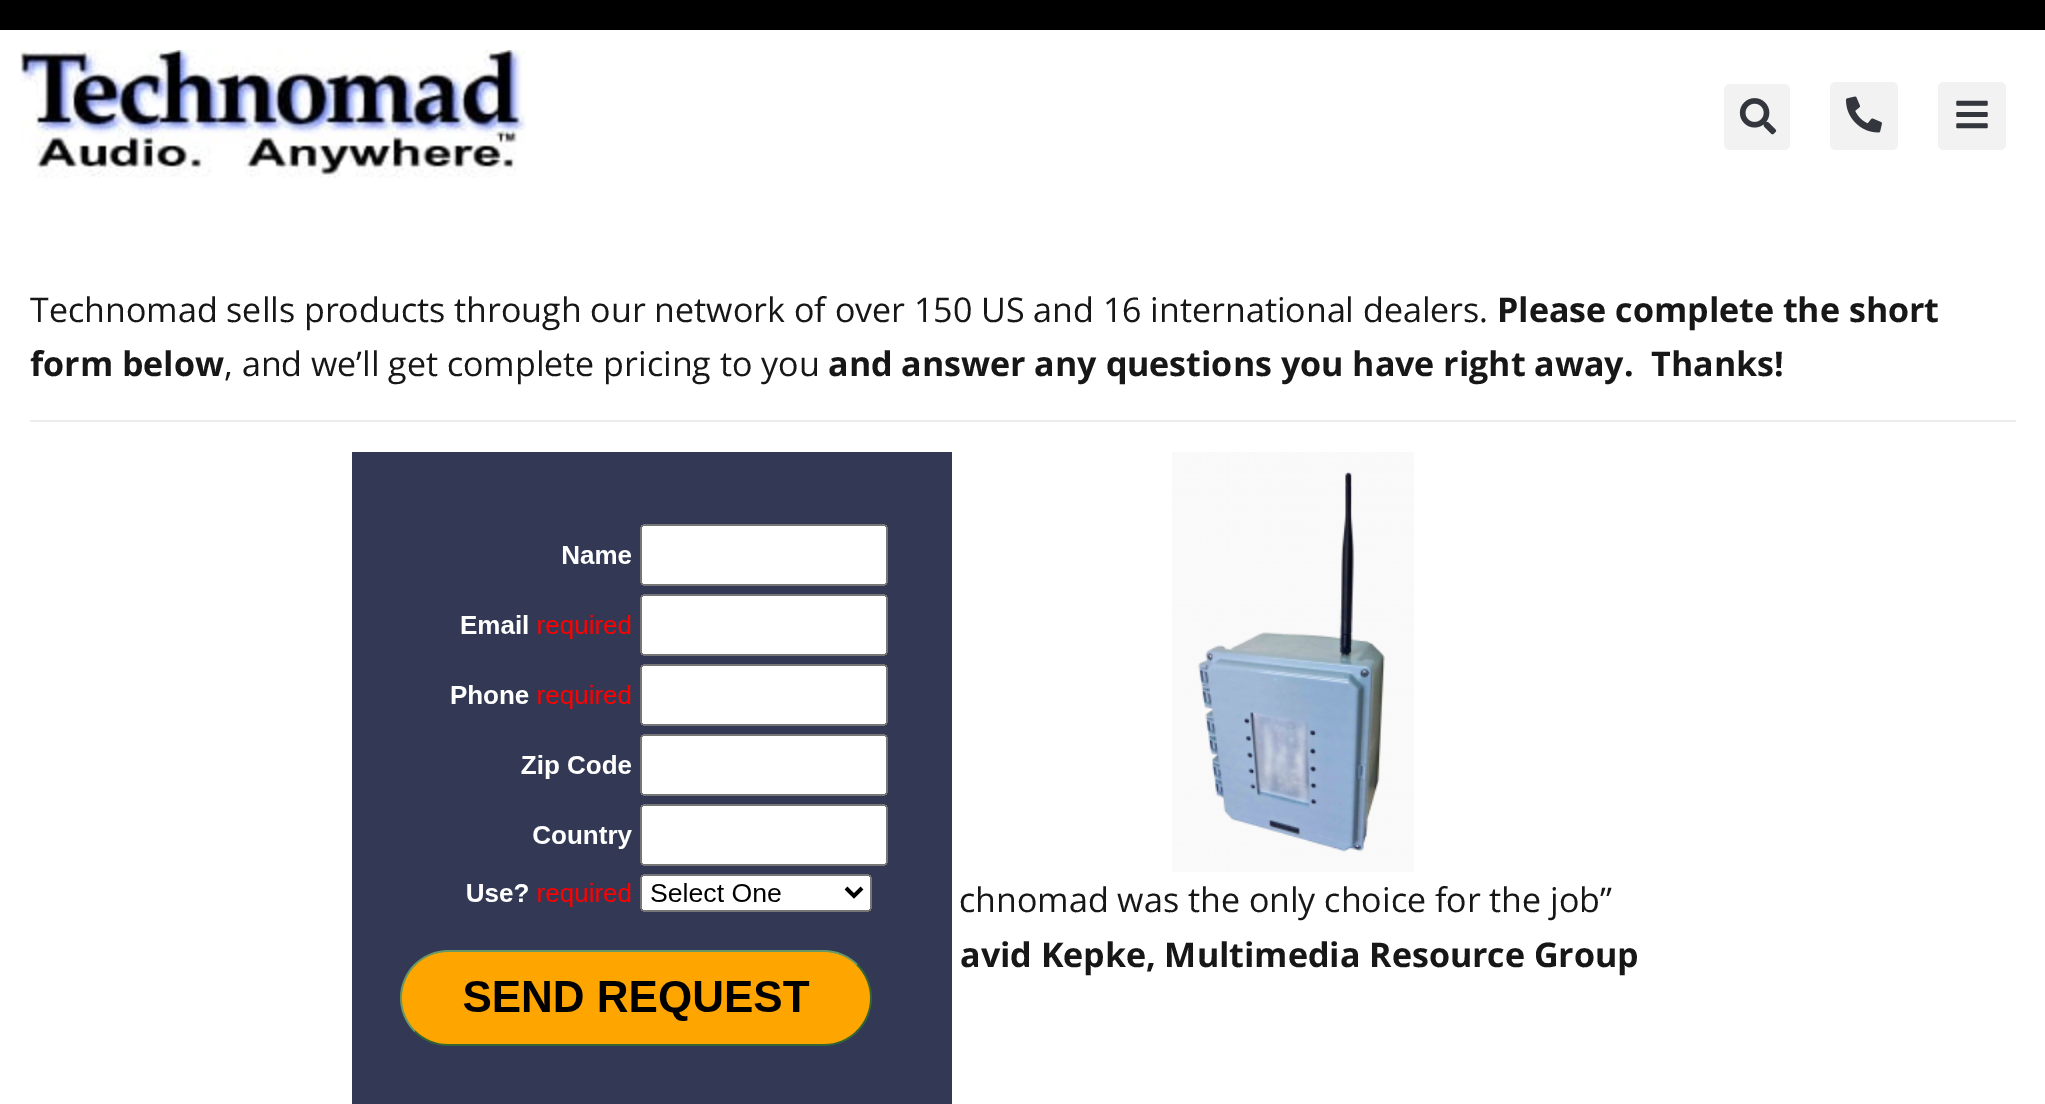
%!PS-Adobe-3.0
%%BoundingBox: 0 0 2045 1104
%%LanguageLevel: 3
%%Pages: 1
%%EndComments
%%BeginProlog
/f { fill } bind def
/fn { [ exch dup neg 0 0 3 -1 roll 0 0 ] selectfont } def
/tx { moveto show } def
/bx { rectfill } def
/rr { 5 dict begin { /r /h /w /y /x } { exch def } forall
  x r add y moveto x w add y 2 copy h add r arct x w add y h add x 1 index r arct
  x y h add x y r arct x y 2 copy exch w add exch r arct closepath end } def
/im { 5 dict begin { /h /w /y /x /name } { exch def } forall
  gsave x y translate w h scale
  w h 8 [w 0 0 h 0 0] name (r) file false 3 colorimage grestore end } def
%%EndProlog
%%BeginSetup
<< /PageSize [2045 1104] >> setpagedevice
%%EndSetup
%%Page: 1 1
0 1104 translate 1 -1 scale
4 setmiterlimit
1 setgray
0 0 2045 1104 bx
0 setgray
0 0 2045 30 bx
(image0.raw) 20 50 506 128 im
0.949 setgray
1724 84 66 66 6 rr f
(image1.raw) 1739 98 38 37 im
1830 82 68 68 6 rr f
(image2.raw) 1846 96 36 37 im
1938 82 68 68 6 rr f
(image3.raw) 1956 100 32 29 im
/OpenSans-Regular 34 fn
0.09 setgray
(Technomad sells products through our network of over 150 US and 16 international dealers.) 30 322 tx
/OpenSans-Bold 34 fn
(Please complete the short) 1497 322 tx
(form below) 30 376 tx
/OpenSans-Regular 34 fn
(, and we’ll get complete pricing to you) 224 376 tx
/OpenSans-Bold 34 fn
(and answer any questions you have right away.  Thanks!) 828 376 tx
0.918 0.925 0.933 setrgbcolor
30 420 1986 2 bx
0.2 0.224 0.333 setrgbcolor
352 452 600 652 bx
(image4.raw) 400 524 488 522 im
(image5.raw) 1172 452 242 420 im
/OpenSans-Regular 34 fn
0.09 setgray
(chnomad was the only choice for the job”) 959 912 tx
/OpenSans-Bold 34 fn
(avid Kepke, Multimedia Resource Group) 960 967 tx
showpage
%%EOF
